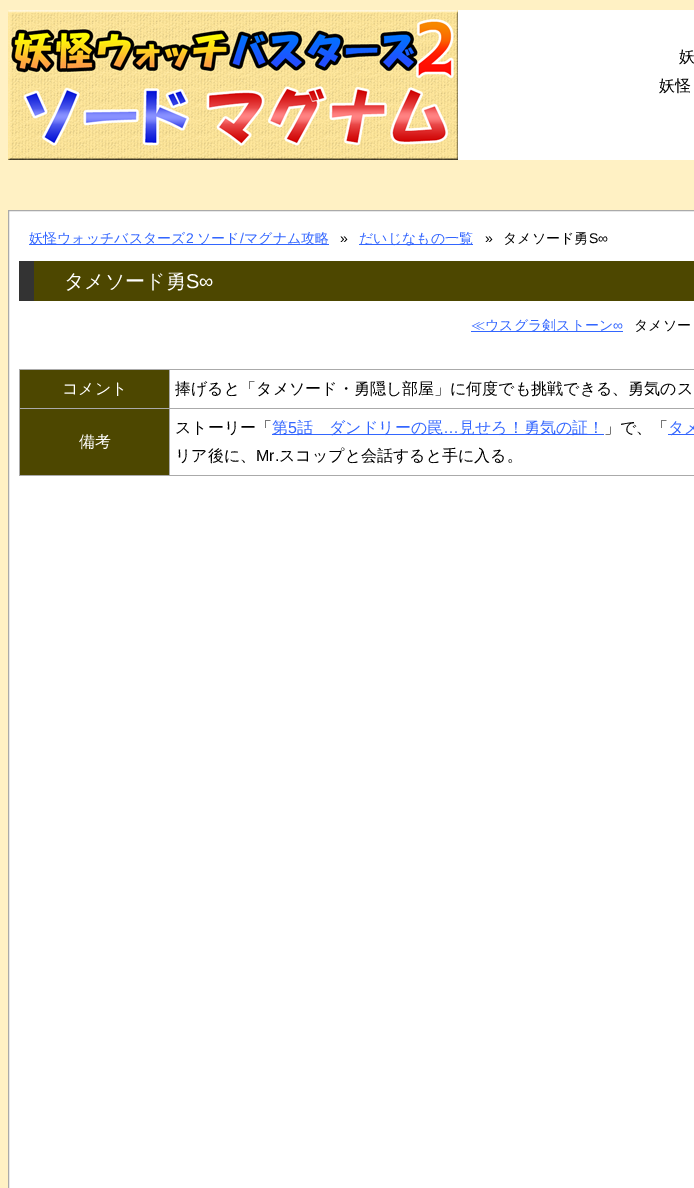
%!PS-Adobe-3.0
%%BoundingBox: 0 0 694 1188
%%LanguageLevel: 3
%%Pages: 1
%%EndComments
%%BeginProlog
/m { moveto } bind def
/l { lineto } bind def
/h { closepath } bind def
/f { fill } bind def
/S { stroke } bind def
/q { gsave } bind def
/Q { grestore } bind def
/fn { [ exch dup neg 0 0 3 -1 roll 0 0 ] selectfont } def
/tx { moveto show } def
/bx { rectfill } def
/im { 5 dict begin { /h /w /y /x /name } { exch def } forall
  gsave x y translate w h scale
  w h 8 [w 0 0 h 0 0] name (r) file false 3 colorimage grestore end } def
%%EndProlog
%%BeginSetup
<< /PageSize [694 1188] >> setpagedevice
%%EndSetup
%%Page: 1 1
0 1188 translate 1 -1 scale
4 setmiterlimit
1 0.945 0.769 setrgbcolor
0 0 694 1188 bx
1 setgray
458 10 236 150 bx
(image0.raw) 8 10 450 150 im
/WenQuanYiZenHei-Medium 16 fn
0 setgray
(妖) 679 62 tx
(妖怪) 659 91 tx
1 setgray
8.5 210.5 m 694.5 210.5 l 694.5 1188.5 l 8.5 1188.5 l h q f Q
0.667 setgray
S
0.2 0.4 1 setrgbcolor
29 244 300 1 bx
/WenQuanYiZenHei-Medium 14 fn
(妖怪ウォッチバスターズ) 29 243 tx
/LiberationSans-Regular 14 fn
(2) 186 243 tx
/WenQuanYiZenHei-Medium 14 fn
(ソード) 197 243 tx
/LiberationSans-Regular 14 fn
(/) 240 243 tx
/WenQuanYiZenHei-Medium 14 fn
(マグナム攻略) 244 243 tx
/LiberationSans-Regular 14 fn
0 setgray
(») 340 243 tx
0.2 0.4 1 setrgbcolor
359 244 114 1 bx
/WenQuanYiZenHei-Medium 14 fn
(だいじなもの一覧) 359 243 tx
/LiberationSans-Regular 14 fn
0 setgray
(») 485 243 tx
/WenQuanYiZenHei-Medium 14 fn
(タメソード勇) 503 243 tx
/LiberationSans-Regular 14 fn
(S∞) 589 243 tx
0.302 0.278 0 setrgbcolor
34 261 660 40 bx
0.2 setgray
19 261 15 40 bx
/WenQuanYiZenHei-Medium 20 fn
1 setgray
(タメソード勇) 64 288 tx
/LiberationSans-Regular 20 fn
(S∞) 186 288 tx
0.2 0.4 1 setrgbcolor
471 331 152 1 bx
/WenQuanYiZenHei-Medium 14 fn
(≪ウスグラ剣ストーン) 471 330 tx
/LiberationSans-Regular 14 fn
(∞) 613 330 tx
/WenQuanYiZenHei-Medium 14 fn
0 setgray
(タメソー) 634 330 tx
0.302 0.278 0 setrgbcolor
20 370 149 38 bx
0.667 setgray
169 369 525 1 bx
169 408 525 1 bx
169 475 525 1 bx
169 408 1 68 bx
19 408 151 1 bx
169 369 1 40 bx
19 369 151 1 bx
19 475 151 1 bx
19 408 1 68 bx
19 369 1 40 bx
/WenQuanYiZenHei-Medium 16 fn
1 setgray
(コメント) 62 394 tx
0 setgray
(捧げると「タメソード・勇隠し部屋」に何度でも挑戦できる、勇気のス) 175 394 tx
0.302 0.278 0 setrgbcolor
20 409 149 66 bx
1 setgray
(備考) 79 447 tx
0 setgray
(ストーリー「) 175 433 tx
0.2 0.4 1 setrgbcolor
272 434 332 1 bx
(第) 272 433 tx
/LiberationSans-Regular 16 fn
(5) 288 433 tx
/WenQuanYiZenHei-Medium 16 fn
(話　ダンドリーの罠) 297 433 tx
/LiberationSans-Regular 16 fn
(…) 443 433 tx
/WenQuanYiZenHei-Medium 16 fn
(見せろ！勇気の証！) 459 433 tx
0 setgray
(」で、「) 604 433 tx
0.2 0.4 1 setrgbcolor
668 434 26 1 bx
(タメ) 668 433 tx
0 setgray
(リア後に、) 175 461 tx
/LiberationSans-Regular 16 fn
(Mr.) 256 461 tx
/WenQuanYiZenHei-Medium 16 fn
(スコップと会話すると手に入る。) 279 461 tx
showpage
%%EOF
